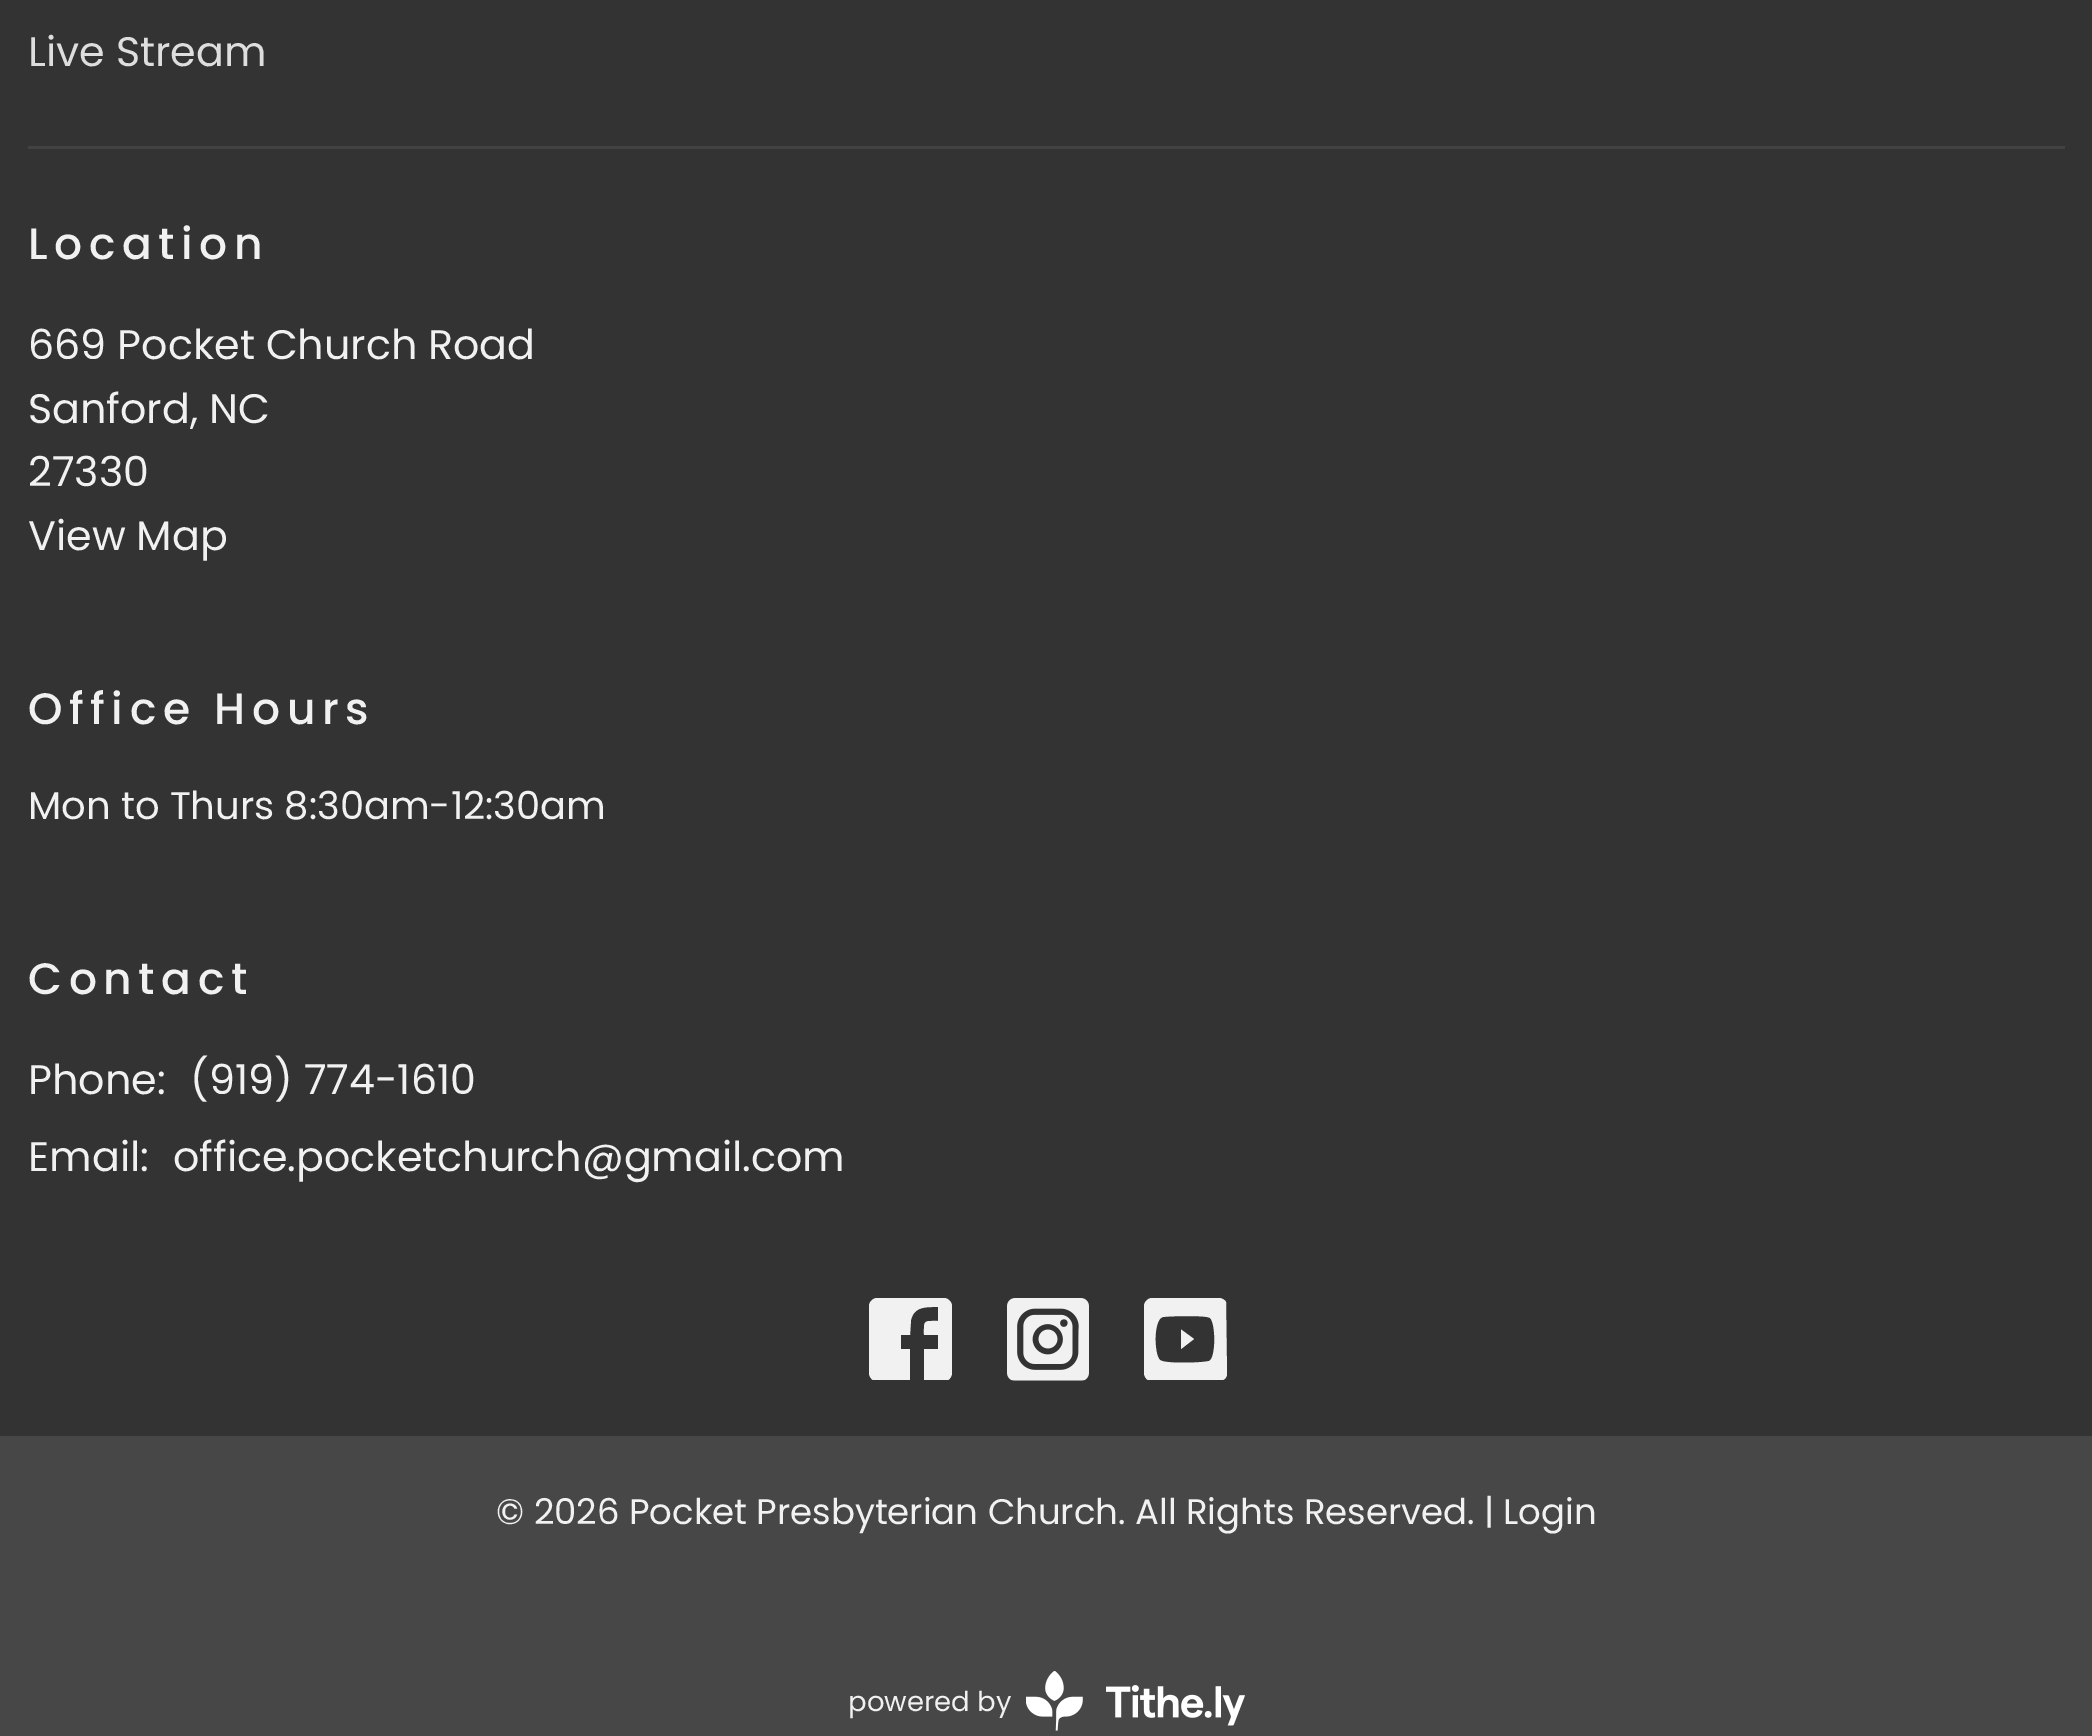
%!PS-Adobe-3.0
%%BoundingBox: 0 0 2092 1736
%%LanguageLevel: 3
%%Pages: 1
%%EndComments
%%BeginProlog
/m { moveto } bind def
/l { lineto } bind def
/c { curveto } bind def
/h { closepath } bind def
/f { fill } bind def
/fn { [ exch dup neg 0 0 3 -1 roll 0 0 ] selectfont } def
/tx { moveto show } def
/bx { rectfill } def
/im { 5 dict begin { /h /w /y /x /name } { exch def } forall
  gsave x y translate w h scale
  w h 8 [w 0 0 h 0 0] name (r) file false 3 colorimage grestore end } def
%%EndProlog
%%BeginSetup
<< /PageSize [2092 1736] >> setpagedevice
%%EndSetup
%%Page: 1 1
0 1736 translate 1 -1 scale
4 setmiterlimit
0.278 setgray
0 0 2092 1736 bx
0.2 setgray
0 0 2092 1436 bx
/Poppins-Regular 41.25 fn
0.871 setgray
(Live Stream) 28 66 tx
0.259 setgray
28 146 2037 3 bx
/Poppins-Medium 44 fn
0.945 setgray
28 259 m 6.6 0 (Location) ashow
/Poppins-Regular 41.25 fn
(669 Pocket Church Road) 28 359 tx
(Sanford, NC) 28 423 tx
(27330) 28 486 tx
(View Map) 28 550 tx
/Poppins-Medium 44 fn
28 724 m 6.6 0 (Office Hours) ashow
/Poppins-Regular 38.5 fn
(Mon to Thurs 8:30am-12:30am) 28 819 tx
/Poppins-Medium 44 fn
28 994 m 6.6 0 (Contact) ashow
/Poppins-Regular 41.25 fn
(Phone:) 28 1094 tx
(\(919\) 774-1610) 190 1094 tx
(Email:) 28 1171 tx
(office.pocketchurch@gmail.com) 173 1171 tx
938 1307 m 938 1321 l 923 1321 924 1320 924 1335 c 938 1335 l 938 1349 l 924 1349 l 924 1380 l 948 1380 l 950 1379 952 1376 952 1373 c 952 1306 l 952 1302 948 1298 944 1298 c 877 1298 l 873 1298 869 1302 869 1306 c 869 1373 l 869 1376 871 1379 873 1380 c 910 1380 l 910 1349 l 901 1349 l 901 1335 l 910 1335 l 911 1320 l 914 1306 927 1307 938 1307 c h f
(image0.raw) 1007 1298 82 83 im
1181 1329.5 m 1194 1339 l 1181 1349 l h f
1152 1298 m 1148 1298 1144 1302 1144 1306 c 1144 1373 l 1144 1376 1146 1379 1148 1380 c 1223 1380 l 1225 1379 1227 1377 1227 1374 c 1226 1302 l 1225 1300 1222 1298 1219 1298 c h 1209 1361 m 1216 1359 1216 1323 1210 1318 c 1207 1315 1169 1316 1163 1317 c 1153 1319 1154 1355 1160 1360 c 1164 1364 1202 1363 1209 1361 c h eofill
/Poppins-Regular 35.5 fn
(© 2026 Pocket Presbyterian Church. All Rights Reserved. |) 496 1524 tx
(Login) 1503 1524 tx
/Poppins-Regular 27.5 fn
(powered by) 848 1711 tx
(image1.raw) 1026 1671 219 60 im
showpage
%%EOF
